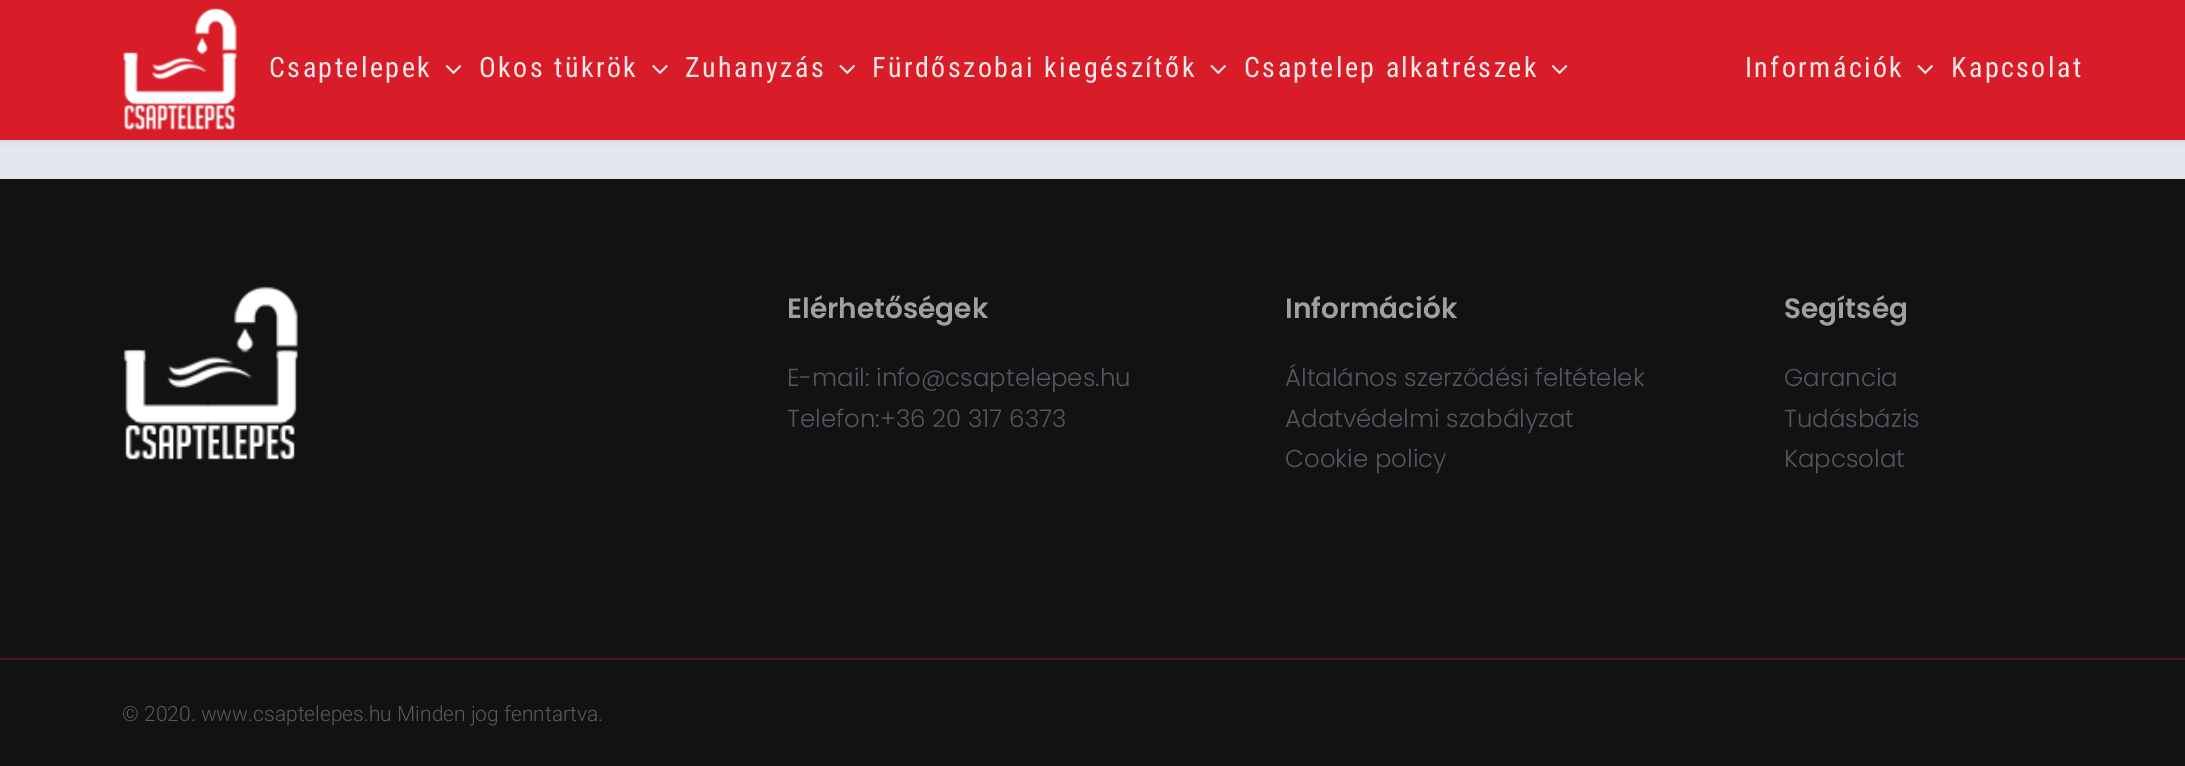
%!PS-Adobe-3.0
%%BoundingBox: 0 0 2185 766
%%LanguageLevel: 3
%%Pages: 1
%%EndComments
%%BeginProlog
/m { moveto } bind def
/fn { [ exch dup neg 0 0 3 -1 roll 0 0 ] selectfont } def
/tx { moveto show } def
/bx { rectfill } def
/al { dup .setfillconstantalpha .setstrokeconstantalpha } def
/rr { 5 dict begin { /r /h /w /y /x } { exch def } forall
  x r add y moveto x w add y 2 copy h add r arct x w add y h add x 1 index r arct
  x y h add x y r arct x y 2 copy exch w add exch r arct closepath end } def
/sh { 12 dict begin { /a /b /q /h /w /y /x } { exch def } forall gsave /was 0 def
  9 -2 -9 { dup b mul 4 div /e exch def 1 sub .425 mul 2.718 exch exp 1 add a .99 .min exch div /now exch def
    1 1 now sub 1 was sub div sub al /was now def
    w h .min e 2 mul add 0 gt { x e sub y e sub w e 2 mul add h e 2 mul add
      q e add b .6 mul add w h .min 2 div e add .min 0 .max rr fill } if } for grestore end } def
/im { 5 dict begin { /h /w /y /x /name } { exch def } forall
  gsave x y translate w h scale
  w h 8 [w 0 0 h 0 0] name (r) file false 3 colorimage grestore end } def
%%EndProlog
%%BeginSetup
<< /PageSize [2185 766] /PageUsesTransparency true >> setpagedevice
%%EndSetup
%%Page: 1 1
0 .pushpdf14devicefilter
0 766 translate 1 -1 scale
4 setmiterlimit
0.89 0.902 0.929 setrgbcolor
0 0 2185 766 bx
0 setgray
0 0 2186 140 0 3.5 0.1 sh
0.847 0.114 0.157 setrgbcolor
0 0 2185 140 bx
(image0.raw) 123 8 114 122 im
/RobotoCondensed-Regular 28 fn
0.984 0.91 0.918 setrgbcolor
269 77 m 2.45 0 (Csaptelepek) ashow
(image1.raw) 445 65 17 9 im
479 77 m 2.45 0 (Okos tükrök) ashow
(image2.raw) 652 65 16 9 im
685 77 m 2.45 0 (Zuhanyzás) ashow
(image3.raw) 839 65 16 9 im
872 77 m 2.45 0 (Fürdőszobai kiegészítők) ashow
(image3.raw) 1210 65 16 9 im
1244 77 m 2.45 0 (Csaptelep alkatrészek) ashow
(image1.raw) 1551 65 17 9 im
1745 77 m 2.45 0 (Információk) ashow
(image3.raw) 1917 65 16 9 im
1951 77 m 2.45 0 (Kapcsolat) ashow
0.071 setgray
0 179 2185 479 bx
(image4.raw) 123 286 175 174 im
/Poppins-SemiBold 28 fn
0.627 setgray
(Elérhetőségek) 787 318 tx
/Poppins-Light 24.5 fn
0.329 0.333 0.38 setrgbcolor
(E-mail: info@csaptelepes.hu) 787 386 tx
(Telefon:+36 20 317 6373) 787 427 tx
/Poppins-SemiBold 28 fn
0.627 setgray
(Információk) 1285 318 tx
/Poppins-Light 24.5 fn
0.329 0.333 0.38 setrgbcolor
(Általános szerződési feltételek) 1285 386 tx
(Adatvédelmi szabályzat) 1285 427 tx
(Cookie policy) 1285 467 tx
/Poppins-SemiBold 28 fn
0.627 setgray
(Segítség) 1784 318 tx
/Poppins-Light 24.5 fn
0.329 0.333 0.38 setrgbcolor
(Garancia) 1784 386 tx
(Tudásbázis) 1784 427 tx
(Kapcsolat) 1784 467 tx
0.071 setgray
0 660 2185 106 bx
0.302 0.082 0.098 setrgbcolor
0 658 2185 2 bx
/Roboto-Light 21 fn
0.349 setgray
(© 2020. www.csaptelepes.hu Minden jog fenntartva.) 122 721 tx
.poppdf14devicefilter showpage
%%EOF
